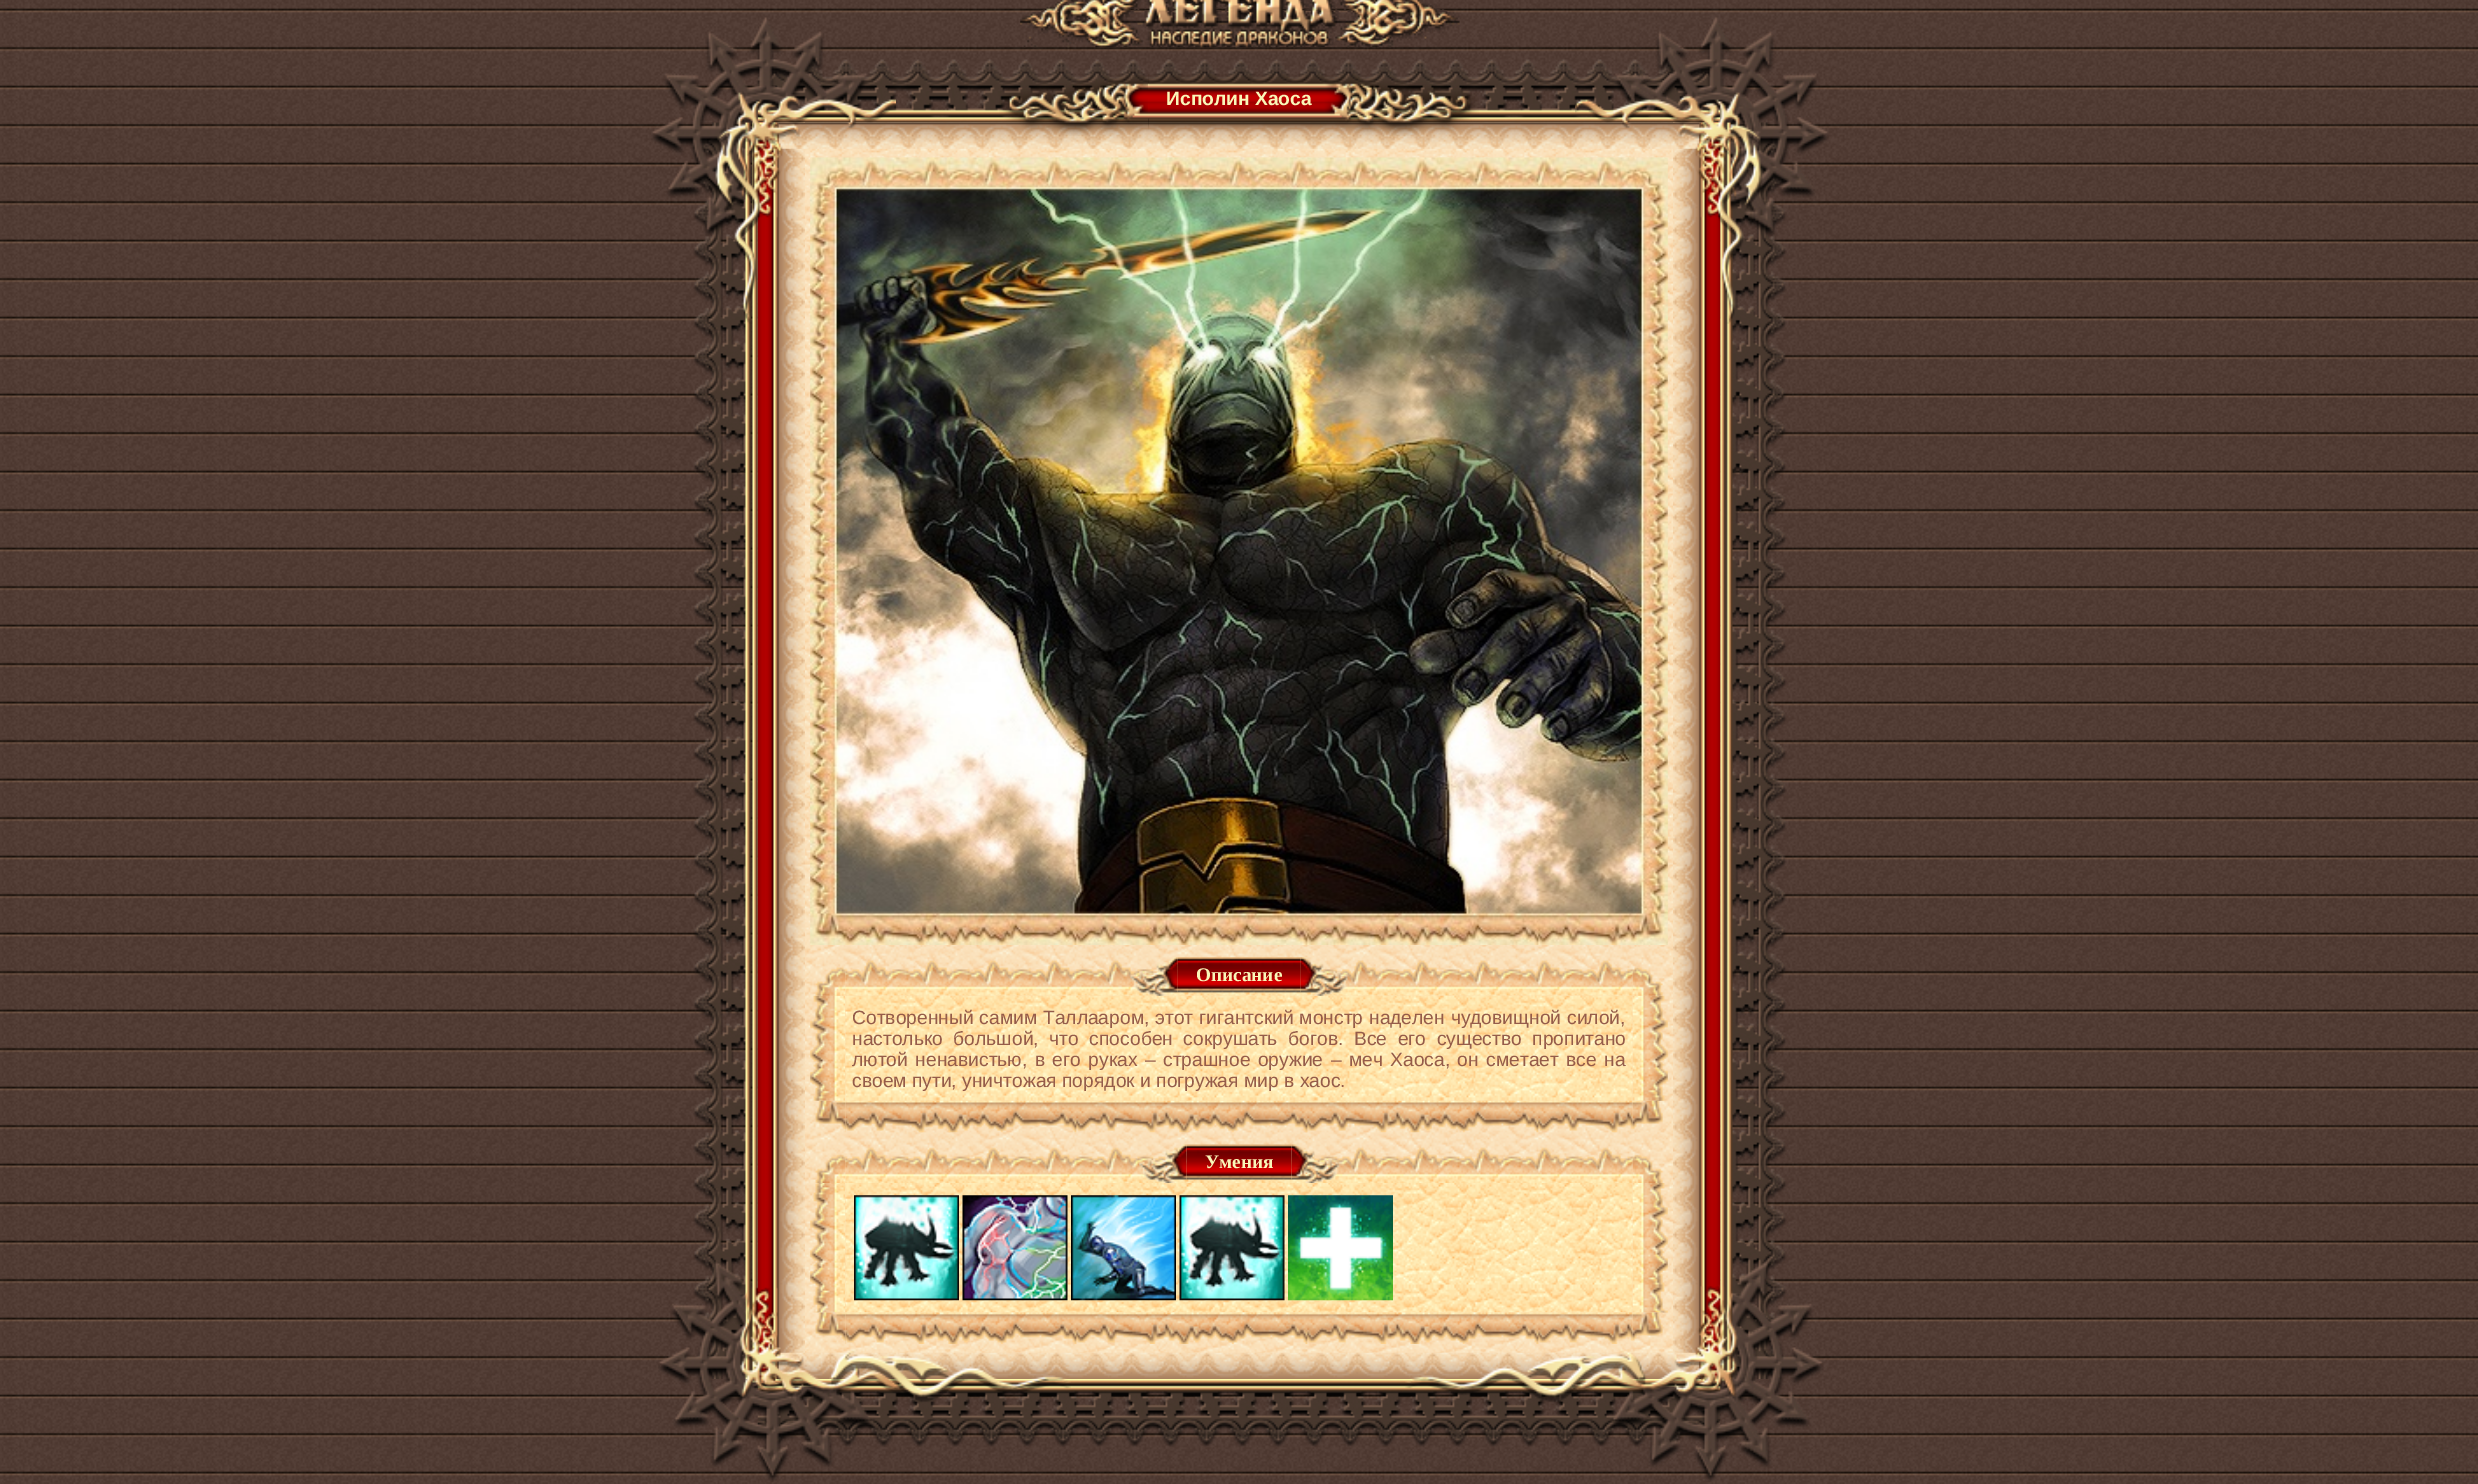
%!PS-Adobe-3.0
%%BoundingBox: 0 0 2478 1484
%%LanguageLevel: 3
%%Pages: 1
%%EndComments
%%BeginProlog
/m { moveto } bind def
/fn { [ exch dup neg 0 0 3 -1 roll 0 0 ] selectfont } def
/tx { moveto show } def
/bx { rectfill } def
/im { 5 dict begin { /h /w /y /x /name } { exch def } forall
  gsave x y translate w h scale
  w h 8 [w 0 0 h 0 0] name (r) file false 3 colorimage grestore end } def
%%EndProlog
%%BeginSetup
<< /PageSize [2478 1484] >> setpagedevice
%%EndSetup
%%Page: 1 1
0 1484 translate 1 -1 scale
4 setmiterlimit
1 setgray
0 0 2478 1484 bx
(image0.raw) 0 0 2478 1484 im
(image1.raw) 1020 0 440 48 im
(image3.raw) 757 59 964 64 im
(image7.raw) 693 122 65 1257 im
(image8.raw) 1720 122 67 1257 im
(image9.raw) 757 122 964 1231 im
(image10.raw) 757 122 48 1257 im
(image11.raw) 1673 122 48 1257 im
(image12.raw) 778 122 922 27 im
(image2.raw) 651 17 245 307 im
(image4.raw) 999 75 150 61 im
(image5.raw) 1148 74 331 62 im
/LiberationSans-Bold 19.25 fn
0.98 0.969 0.725 setrgbcolor
(Исполин Хаоса) 1166 105 tx
(image6.raw) 1575 17 254 307 im
(image13.raw) 778 1352 922 27 im
(image14.raw) 810 157 858 788 im
(image16.raw) 845 960 788 36 im
(image21.raw) 810 995 36 106 im
(image22.raw) 845 995 788 106 im
(image15.raw) 815 967 31 29 im
(image18.raw) 1177 957 124 36 im
(image17.raw) 1130 957 48 39 im
/LiberationSerif-Bold 19.25 fn
(Описание) 1196 981 tx
(image19.raw) 1300 957 48 39 im
(image23.raw) 1632 995 36 106 im
(image20.raw) 1632 967 31 29 im
/LiberationSans-Regular 19.25 fn
0.584 0.361 0.29 setrgbcolor
852 1024 m 0.5 0 32 (Сотворенный самим Таллааром, этот гигантский монстр наделен чудовищной силой,) widthshow
852 1045 m 5.25 0 32 (настолько большой, что способен сокрушать богов. Все его существо пропитано) widthshow
852 1066 m 2.1 0 32 (лютой ненавистью, в его руках – страшное оружие – меч Хаоса, он сметает все на) widthshow
(своем пути, уничтожая порядок и погружая мир в хаос.) 852 1087 tx
(image25.raw) 845 1100 788 33 im
(image24.raw) 815 1100 31 30 im
(image26.raw) 1632 1100 31 30 im
(image28.raw) 845 1147 788 36 im
(image27.raw) 815 1154 31 29 im
(image30.raw) 1186 1144 106 36 im
(image29.raw) 1139 1144 48 39 im
/LiberationSerif-Bold 19.25 fn
0.98 0.969 0.725 setrgbcolor
(Умения) 1205 1168 tx
(image31.raw) 1291 1144 48 39 im
(image32.raw) 1632 1154 31 29 im
(image46.raw) 757 1379 964 68 im
(image44.raw) 658 1261 413 221 im
(image33.raw) 810 1183 36 130 im
(image45.raw) 1405 1261 419 221 im
(image34.raw) 845 1183 788 130 im
(image35.raw) 854 1195 105 106 im
(image36.raw) 962 1195 106 106 im
(image37.raw) 1071 1195 105 106 im
(image38.raw) 1179 1195 106 106 im
(image39.raw) 1288 1195 105 106 im
(image40.raw) 1632 1183 36 130 im
(image42.raw) 845 1312 788 32 im
(image41.raw) 815 1312 31 29 im
(image43.raw) 1632 1312 31 29 im
showpage
%%EOF
